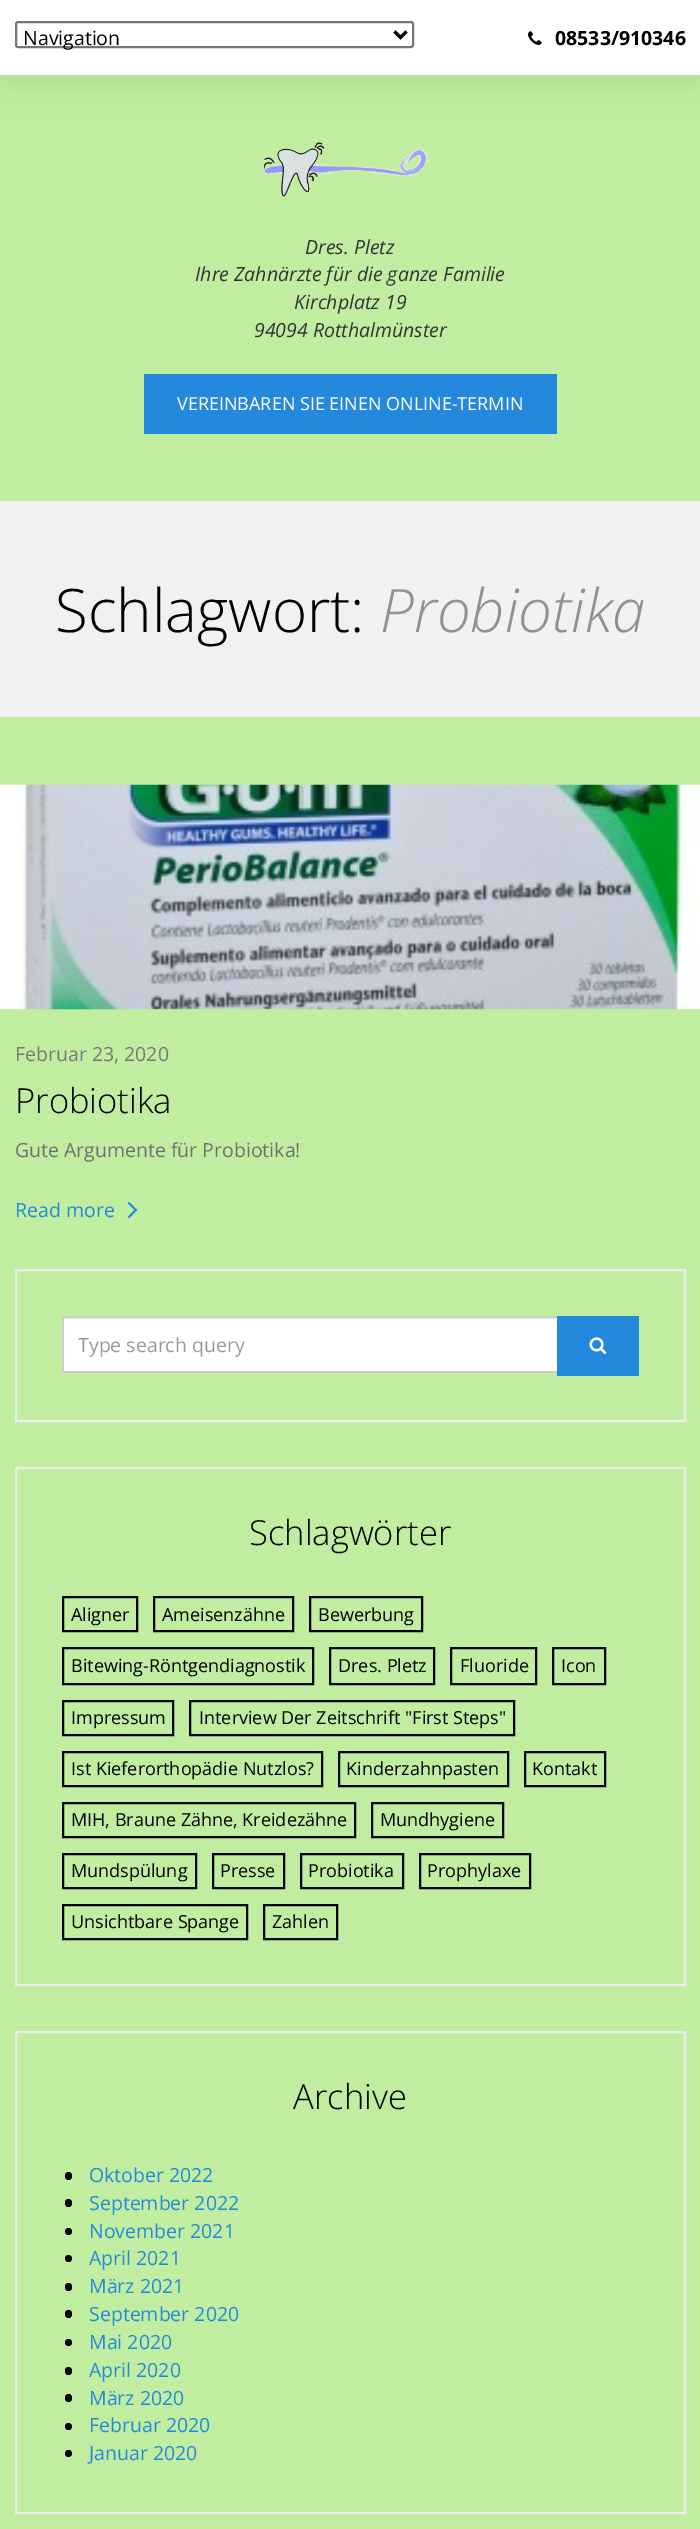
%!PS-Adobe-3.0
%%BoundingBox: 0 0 700 2529
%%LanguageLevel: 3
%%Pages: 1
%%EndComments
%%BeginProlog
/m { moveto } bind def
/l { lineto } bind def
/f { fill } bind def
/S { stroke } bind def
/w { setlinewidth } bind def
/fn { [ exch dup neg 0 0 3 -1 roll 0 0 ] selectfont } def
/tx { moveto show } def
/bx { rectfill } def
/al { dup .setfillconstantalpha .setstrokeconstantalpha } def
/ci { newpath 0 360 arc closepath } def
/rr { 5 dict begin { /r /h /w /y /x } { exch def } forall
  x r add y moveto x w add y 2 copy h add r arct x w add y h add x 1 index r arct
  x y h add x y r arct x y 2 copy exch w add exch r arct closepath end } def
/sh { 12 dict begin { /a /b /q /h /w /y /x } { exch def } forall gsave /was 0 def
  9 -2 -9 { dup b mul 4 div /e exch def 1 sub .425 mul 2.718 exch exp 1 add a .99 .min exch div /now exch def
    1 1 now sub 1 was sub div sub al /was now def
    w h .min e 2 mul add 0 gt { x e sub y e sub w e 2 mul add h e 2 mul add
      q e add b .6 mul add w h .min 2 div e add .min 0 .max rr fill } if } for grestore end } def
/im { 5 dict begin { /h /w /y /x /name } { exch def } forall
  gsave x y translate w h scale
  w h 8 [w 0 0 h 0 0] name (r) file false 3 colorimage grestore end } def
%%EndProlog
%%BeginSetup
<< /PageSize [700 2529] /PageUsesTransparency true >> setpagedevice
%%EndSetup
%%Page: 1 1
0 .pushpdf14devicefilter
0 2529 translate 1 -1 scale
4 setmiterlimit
0.753 0.929 0.627 setrgbcolor
0 0 700 2529 bx
0.024 setgray
2 2 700 75 0 19 0.1 sh
1 setgray
0 0 700 75 bx
0.463 setgray
2 w
16 22 397 25 2 rr S
0 setgray
3 w
394.5 31.5 m 400.5 37.5 l 406.5 31.5 l S
/OpenSans-Regular 19.5 fn
(Navigation) 23 45 tx
(image0.raw) 528 31 14 14 im
/OpenSans-Bold 19.5 fn
(08533/910346) 555 45 tx
(image1.raw) 264 142 164 55 im
/OpenSans-Italic 19.5 fn
0.2 setgray
(Dres. Pletz) 305 254 tx
(Ihre Zahnärzte für die ganze Familie) 195 281 tx
(Kirchplatz 19) 294 309 tx
(94094 Rotthalmünster) 254 337 tx
0.141 0.533 0.867 setrgbcolor
144 374 413 60 bx
/OpenSans-Regular 18 fn
1 setgray
(VEREINBAREN SIE EINEN ONLINE-TERMIN) 177 410 tx
0.945 setgray
0 501 700 216 bx
/OpenSans-Light 60 fn
0 setgray
(Schlagwort:) 55 632 tx
/OpenSans-LightItalic 60 fn
0.569 setgray
(Probiotika) 380 632 tx
(image2.raw) 0 784 700 226 im
/OpenSans-Regular 19.5 fn
0.467 setgray
(Februar 23, 2020) 15 1061 tx
/OpenSans-Light 34.5 fn
0 setgray
(Probiotika) 15 1113 tx
/OpenSans-Regular 19.5 fn
0.435 setgray
(Gute Argumente für Probiotika!) 15 1157 tx
0.141 0.533 0.867 setrgbcolor
(Read more) 15 1217 tx
(image3.raw) 127 1202 11 17 im
0.922 setgray
2 w
16 1270 669 151 rectstroke
1 setgray
64 1319 493 52 bx
0.925 setgray
63 1318 494 1 bx
0.8 setgray
62 1316 495 2 bx
62 1371 495 2 bx
62 1316 2 57 bx
0.6 setgray
(Type search query) 78 1352 tx
0.141 0.533 0.867 setrgbcolor
557 1316 82 60 bx
(image4.raw) 589 1337 18 17 im
0.922 setgray
16 1468 669 517 rectstroke
/OpenSans-Light 34.5 fn
0 setgray
(Schlagwörter) 249 1545 tx
63 1597 74 34 rectstroke
/OpenSans-Regular 18 fn
(Aligner) 71 1621 tx
154 1597 139 34 rectstroke
(Ameisenzähne) 162 1621 tx
310 1597 112 34 rectstroke
(Bewerbung) 318 1621 tx
63 1648 250 36 rectstroke
(Bitewing-Röntgendiagnostik) 71 1672 tx
330 1648 104 36 rectstroke
(Dres. Pletz) 338 1672 tx
451 1648 85 36 rectstroke
(Fluoride) 460 1672 tx
553 1648 52 36 rectstroke
(Icon) 561 1672 tx
63 1701 110 34 rectstroke
(Impressum) 71 1724 tx
190 1701 324 34 rectstroke
(Interview Der Zeitschrift "First Steps") 199 1724 tx
63 1752 259 34 rectstroke
(Ist Kieferorthopädie Nutzlos?) 71 1775 tx
339 1752 169 34 rectstroke
(Kinderzahnpasten) 346 1775 tx
525 1752 80 34 rectstroke
(Kontakt) 532 1775 tx
63 1803 292 34 rectstroke
(MIH, Braune Zähne, Kreidezähne) 71 1826 tx
372 1803 131 34 rectstroke
(Mundhygiene) 380 1826 tx
63 1854 133 34 rectstroke
(Mundspülung) 71 1877 tx
213 1854 71 34 rectstroke
(Presse) 220 1877 tx
301 1854 102 34 rectstroke
(Probiotika) 308 1877 tx
420 1854 110 34 rectstroke
(Prophylaxe) 427 1877 tx
63 1905 184 34 rectstroke
(Unsichtbare Spange) 71 1928 tx
264 1905 73 34 rectstroke
(Zahlen) 272 1928 tx
0.922 setgray
16 2032 669 481 rectstroke
/OpenSans-Light 34.5 fn
0 setgray
(Archive) 293 2109 tx
65 2172 7 8 3.5 rr f
/OpenSans-Regular 19.5 fn
0.141 0.533 0.867 setrgbcolor
(Oktober 2022) 89 2182 tx
0 setgray
65 2199 7 8 3.5 rr f
0.141 0.533 0.867 setrgbcolor
(September 2022) 89 2210 tx
0 setgray
68.5 2231.5 3.5 ci f
0.141 0.533 0.867 setrgbcolor
(November 2021) 89 2238 tx
0 setgray
68.5 2258.5 3.5 ci f
0.141 0.533 0.867 setrgbcolor
(April 2021) 89 2265 tx
0 setgray
65 2283 7 8 3.5 rr f
0.141 0.533 0.867 setrgbcolor
(März 2021) 89 2293 tx
0 setgray
65 2310 7 8 3.5 rr f
0.141 0.533 0.867 setrgbcolor
(September 2020) 89 2321 tx
0 setgray
68.5 2342.5 3.5 ci f
0.141 0.533 0.867 setrgbcolor
(Mai 2020) 89 2349 tx
0 setgray
65 2367 7 8 3.5 rr f
0.141 0.533 0.867 setrgbcolor
(April 2020) 89 2377 tx
0 setgray
65 2394 7 8 3.5 rr f
0.141 0.533 0.867 setrgbcolor
(März 2020) 89 2405 tx
0 setgray
68.5 2426.5 3.5 ci f
0.141 0.533 0.867 setrgbcolor
(Februar 2020) 89 2432 tx
0 setgray
68.5 2453.5 3.5 ci f
0.141 0.533 0.867 setrgbcolor
(Januar 2020) 89 2460 tx
.poppdf14devicefilter showpage
%%EOF
